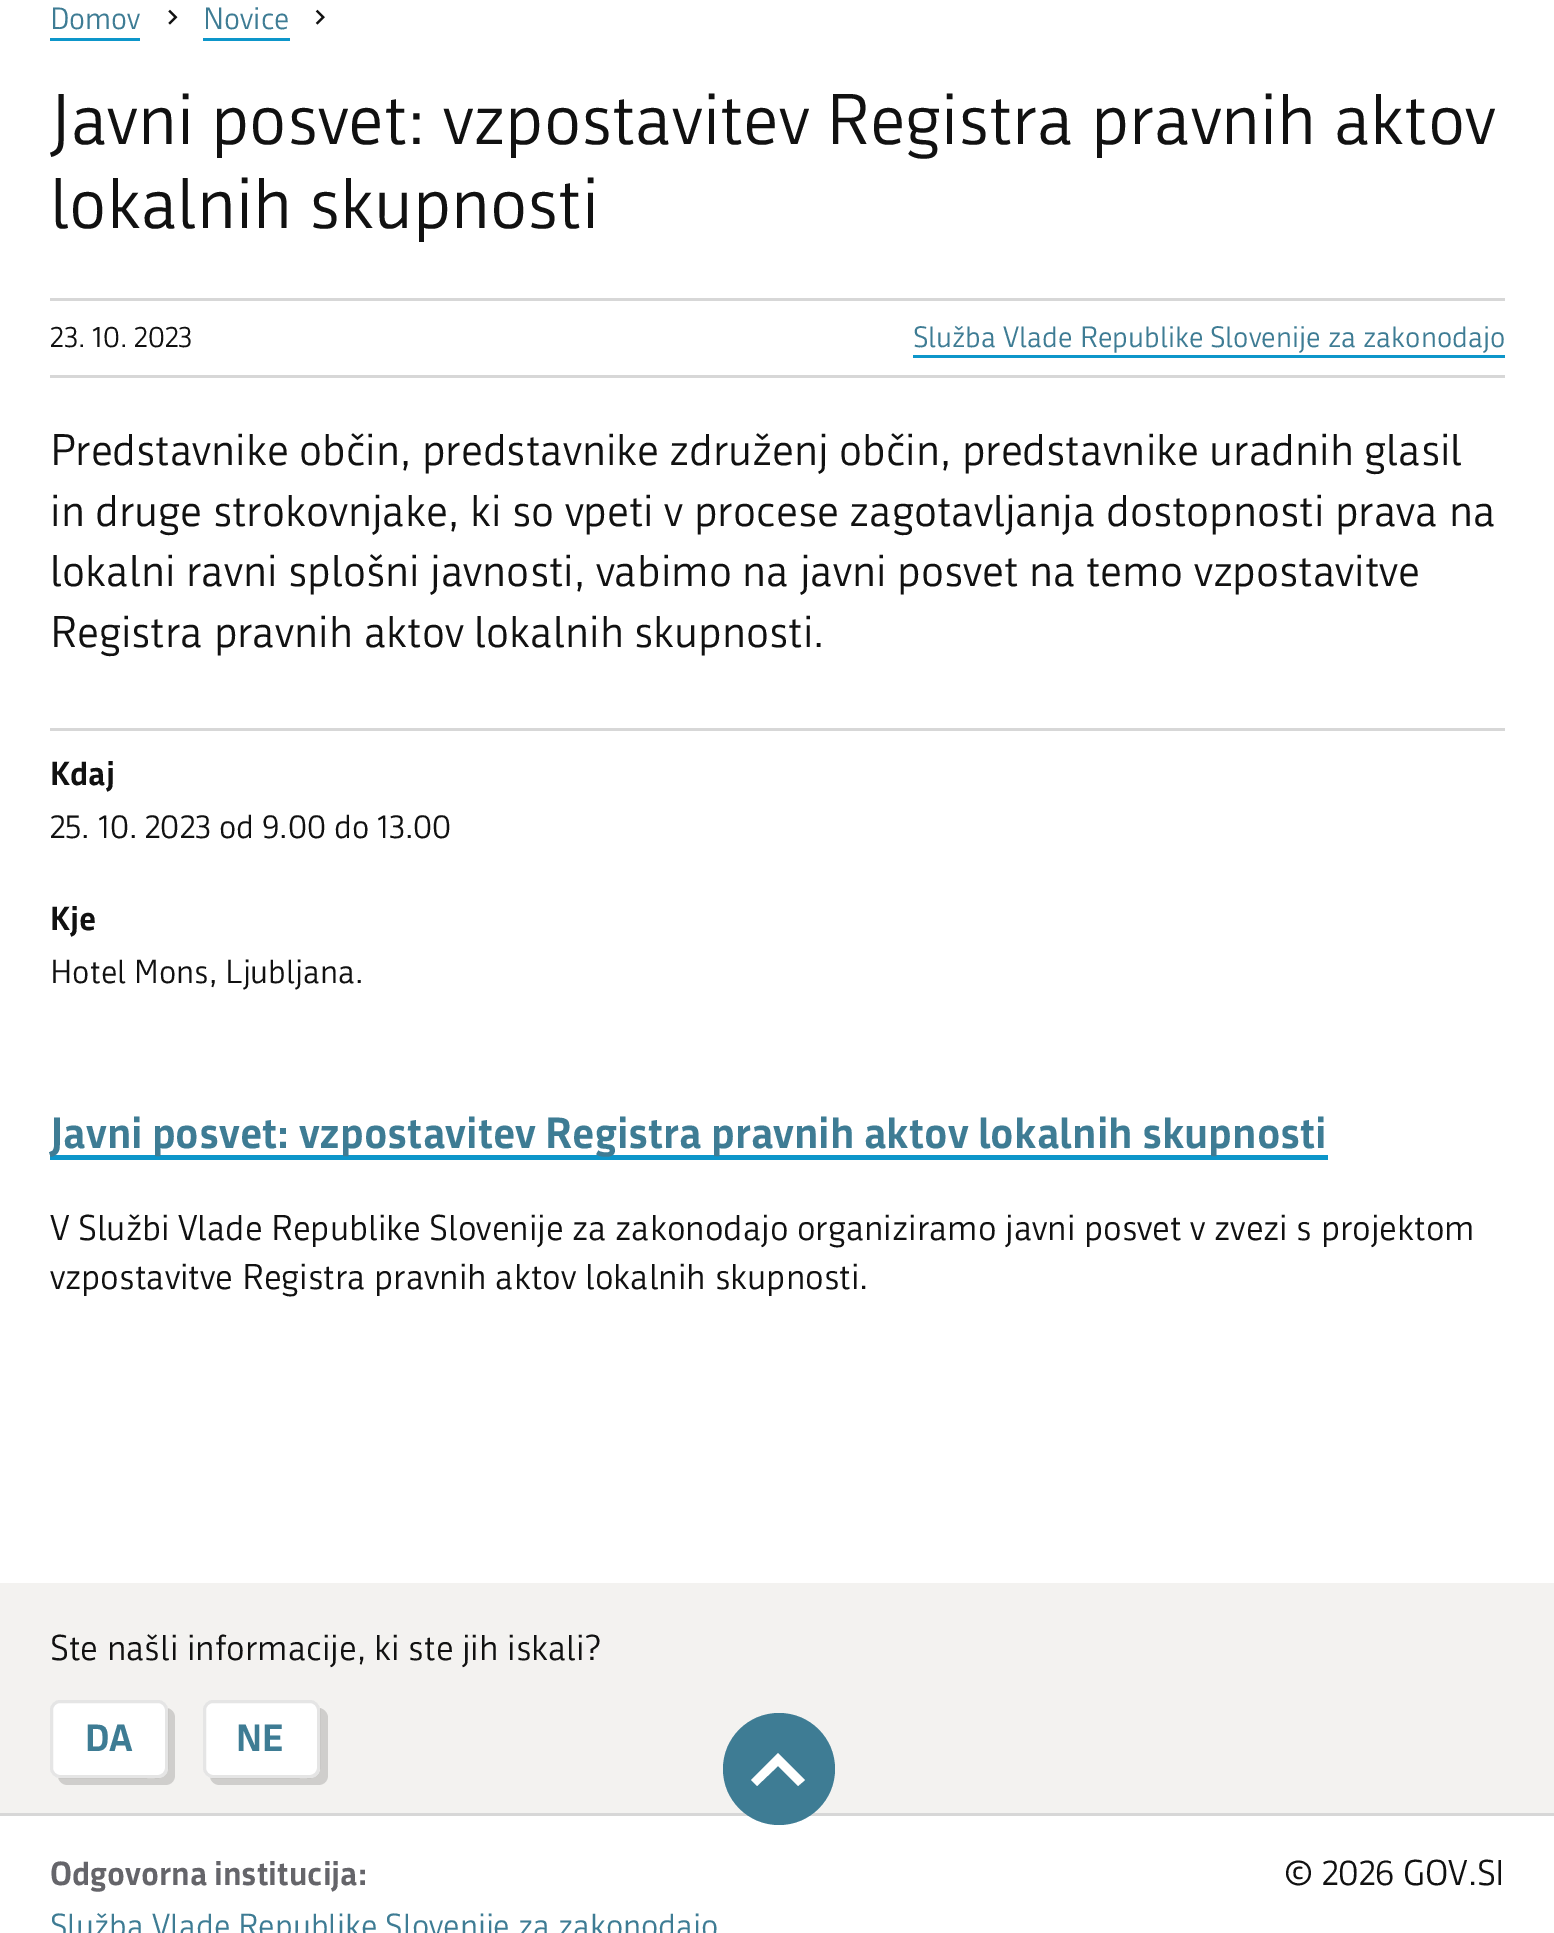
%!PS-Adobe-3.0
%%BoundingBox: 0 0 1554 1933
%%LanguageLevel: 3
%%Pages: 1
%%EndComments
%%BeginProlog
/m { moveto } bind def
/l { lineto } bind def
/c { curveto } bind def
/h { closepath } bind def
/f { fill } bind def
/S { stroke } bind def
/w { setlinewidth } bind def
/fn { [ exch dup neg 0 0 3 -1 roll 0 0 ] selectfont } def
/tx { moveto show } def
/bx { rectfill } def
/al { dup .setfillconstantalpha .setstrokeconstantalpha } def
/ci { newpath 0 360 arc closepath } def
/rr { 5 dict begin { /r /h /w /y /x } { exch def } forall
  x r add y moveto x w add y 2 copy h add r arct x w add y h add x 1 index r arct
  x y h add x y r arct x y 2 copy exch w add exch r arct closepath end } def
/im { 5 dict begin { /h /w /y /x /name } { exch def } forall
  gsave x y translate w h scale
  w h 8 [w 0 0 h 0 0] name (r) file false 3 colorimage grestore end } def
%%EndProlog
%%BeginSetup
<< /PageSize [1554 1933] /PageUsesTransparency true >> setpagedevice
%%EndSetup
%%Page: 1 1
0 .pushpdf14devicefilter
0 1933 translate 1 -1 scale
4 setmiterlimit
1 setgray
0 0 1554 1933 bx
/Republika-Regular 30 fn
0.243 0.486 0.58 setrgbcolor
(Domov) 50 29 tx
0.051 0.588 0.792 setrgbcolor
50 38 90 3 bx
(image0.raw) 168 9 10 16 im
0.243 0.486 0.58 setrgbcolor
(Novice) 203 29 tx
0.051 0.588 0.792 setrgbcolor
203 38 87 3 bx
(image1.raw) 315 9 10 16 im
/Republika-Regular 70 fn
0.067 setgray
(Javni posvet: vzpostavitev Registra pravnih aktov) 50 144 tx
(lokalnih skupnosti) 50 228 tx
0.843 setgray
50 298 1455 3 bx
50 375 1455 3 bx
/Republika-Regular 28.8 fn
0.067 setgray
(23. 10. 2023) 50 347 tx
0.243 0.486 0.58 setrgbcolor
(Služba Vlade Republike Slovenije za zakonodajo) 913 347 tx
0.051 0.588 0.792 setrgbcolor
913 355 592 3 bx
/Republika-Regular 43.25 fn
0.067 setgray
50 465 m -0.25 0 32 (Predstavnike občin, predstavnike združenj občin, predstavnike uradnih glasil) widthshow
(in druge strokovnjake, ki so vpeti v procese zagotavljanja dostopnosti prava na) 50 526 tx
(lokalni ravni splošni javnosti, vabimo na javni posvet na temo vzpostavitve) 50 586 tx
(Registra pravnih aktov lokalnih skupnosti.) 50 647 tx
0.843 setgray
50 728 1455 3 bx
/Republika-Bold 32.5 fn
0.067 setgray
(Kdaj) 50 785 tx
/Republika-Regular 32.5 fn
(25. 10. 2023 od 9.00 do 13.00) 50 838 tx
/Republika-Bold 32.5 fn
(Kje) 50 930 tx
/Republika-Regular 32.5 fn
(Hotel Mons, Ljubljana.) 50 983 tx
0.051 0.588 0.792 setrgbcolor
50 1155 1278 5 bx
/Republika-Bold 42.5 fn
0.243 0.486 0.58 setrgbcolor
(Javni posvet: vzpostavitev Registra pravnih aktov lokalnih skupnosti) 50 1148 tx
/Republika-Regular 35 fn
0.067 setgray
(V Službi Vlade Republike Slovenije za zakonodajo organiziramo javni posvet v zvezi s projektom) 50 1240 tx
(vzpostavitve Registra pravnih aktov lokalnih skupnosti.) 50 1289 tx
0.953 0.949 0.941 setrgbcolor
0 1583 1554 230 bx
0.067 setgray
(Ste našli informacije, ki ste jih iskali?) 50 1660 tx
0.812 0.808 0.8 setrgbcolor
58 1777 m 59 1782 63 1785 68 1785 c 165 1785 l 171 1785 175 1781 175 1775 c 175 1718 l 175 1713 172 1709 167 1708 c 167 1770 l 165 1781 149 1778 141 1778 c h f
1 setgray
50 1700 118 78 10 rr f
0.1 al
0 setgray
3 w
51.5 1701.5 115 75 8.5 rr S
/Republika-Bold 37 fn
1 al
0.243 0.486 0.58 setrgbcolor
(DA) 85 1751 tx
0.812 0.808 0.8 setrgbcolor
210 1777 m 211 1782 215 1785 220 1785 c 318 1785 l 324 1785 328 1781 328 1775 c 328 1718 l 328 1713 324 1709 320 1708 c 320 1770 l 317 1781 301 1778 294 1778 c h f
1 setgray
203 1700 117 78 10 rr f
0.1 al
0 setgray
204.5 1701.5 114 75 8.5 rr S
1 al
0.243 0.486 0.58 setrgbcolor
(NE) 236 1751 tx
0.843 setgray
0 1813 1554 3 bx
/Republika-Bold 32.5 fn
0.396 0.396 0.416 setrgbcolor
(Odgovorna institucija:) 50 1885 tx
/Republika-Regular 32.5 fn
0.243 0.486 0.58 setrgbcolor
(Služba Vlade Republike Slovenije za zakonodajo) 50 1937 tx
/Republika-Regular 35 fn
0.067 setgray
(© 2026 GOV.SI) 1284 1885 tx
0.243 0.486 0.58 setrgbcolor
779 1769 56 ci f
1 setgray
757 1786 m 751 1780 l 778 1753 l 805 1780 l 798 1786 l 778 1766 l h f
.poppdf14devicefilter showpage
%%EOF
